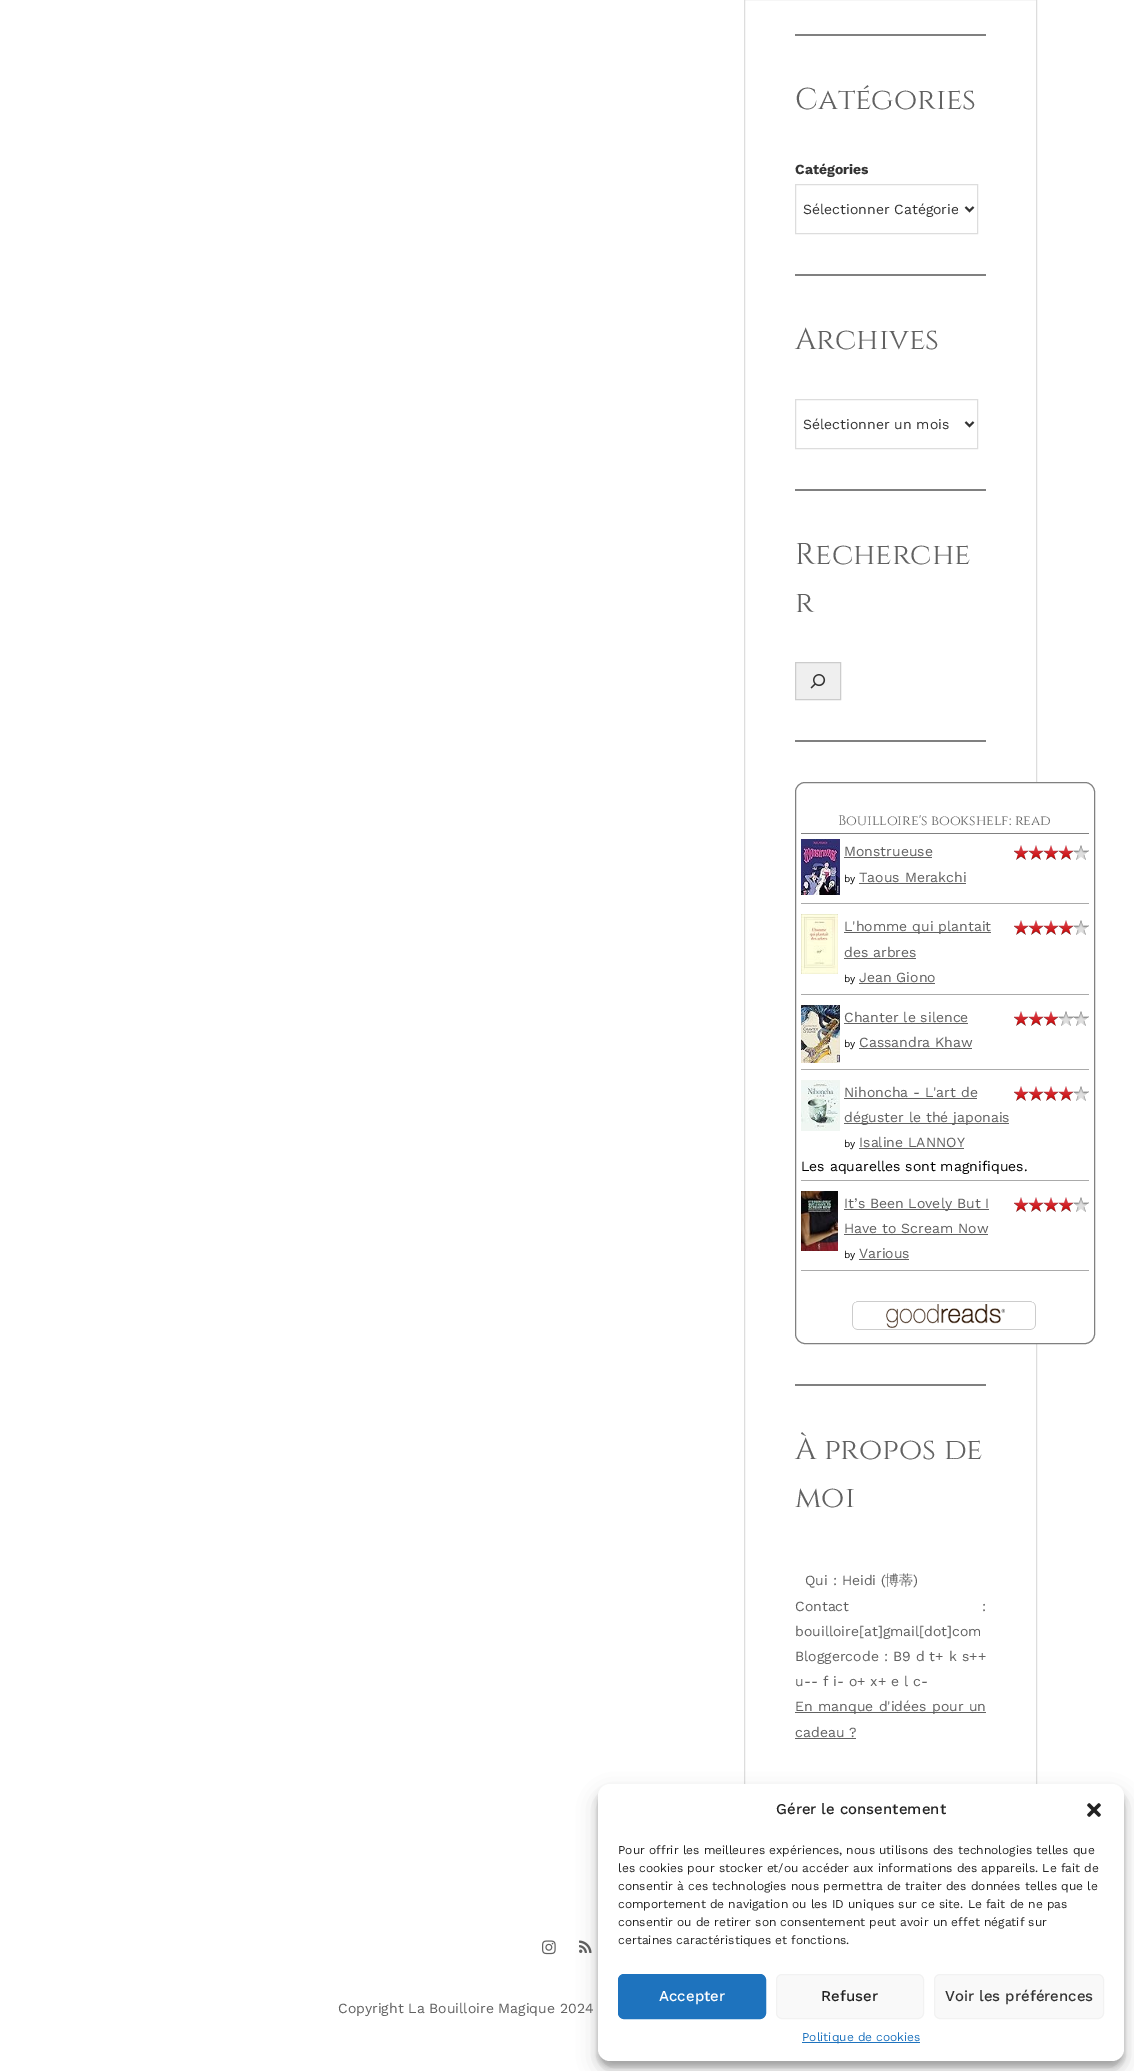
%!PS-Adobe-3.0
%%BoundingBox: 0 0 1134 2071
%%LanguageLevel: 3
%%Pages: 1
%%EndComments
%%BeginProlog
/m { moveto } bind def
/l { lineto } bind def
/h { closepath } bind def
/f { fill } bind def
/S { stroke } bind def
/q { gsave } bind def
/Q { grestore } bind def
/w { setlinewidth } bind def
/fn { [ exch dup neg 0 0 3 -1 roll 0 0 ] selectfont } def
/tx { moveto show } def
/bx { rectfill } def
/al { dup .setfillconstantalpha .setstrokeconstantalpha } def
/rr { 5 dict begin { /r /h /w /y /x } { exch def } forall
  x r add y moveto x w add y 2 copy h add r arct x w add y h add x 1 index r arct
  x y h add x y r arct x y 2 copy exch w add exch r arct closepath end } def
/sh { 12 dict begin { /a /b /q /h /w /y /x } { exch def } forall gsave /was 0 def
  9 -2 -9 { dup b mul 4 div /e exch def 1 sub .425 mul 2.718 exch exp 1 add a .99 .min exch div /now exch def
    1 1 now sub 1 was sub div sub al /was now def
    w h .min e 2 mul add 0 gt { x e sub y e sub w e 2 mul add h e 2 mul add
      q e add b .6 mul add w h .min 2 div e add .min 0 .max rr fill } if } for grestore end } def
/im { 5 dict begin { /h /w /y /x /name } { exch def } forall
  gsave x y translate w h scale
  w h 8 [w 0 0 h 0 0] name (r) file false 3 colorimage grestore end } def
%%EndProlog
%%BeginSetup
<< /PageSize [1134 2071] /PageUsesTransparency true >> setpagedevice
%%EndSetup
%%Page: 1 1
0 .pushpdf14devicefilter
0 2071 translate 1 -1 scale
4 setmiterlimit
1 setgray
0 0 1134 2071 bx
0.867 setgray
744.5 -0.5 292 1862 rectstroke
0.502 setgray
795 34 191 2 bx
/Cinzel-Regular 30 fn
0.38 setgray
(Catégories) 795 109 tx
/WorkSans-Bold 14 fn
0.2 setgray
(Catégories) 795 174 tx
0.867 setgray
795.5 184.5 182 49 rectstroke
0.2 setgray
2 w
965.5 207 m 969.5 211 l 973.5 207 l S
q
803 200 155 18 rectclip
/WorkSans-Regular 14 fn
(Sélectionner Catégorie) 803 214 tx
Q
0.502 setgray
795 274 191 2 bx
/Cinzel-Regular 30 fn
0.38 setgray
(Archives) 795 349 tx
0.867 setgray
1 w
795.5 399.5 182 49 rectstroke
0.2 setgray
2 w
965.5 422 m 969.5 426 l 973.5 422 l S
/WorkSans-Regular 14 fn
(Sélectionner un mois) 803 429 tx
0.502 setgray
795 489 191 2 bx
/Cinzel-Regular 30 fn
0.38 setgray
(Recherche) 795 564 tx
(r) 795 612 tx
0.937 setgray
795.5 662.5 m 840.5 662.5 l 840.5 699.5 l 795.5 699.5 l h q f Q
0.8 setgray
1 w
S
(image0.raw) 810 674 16 15 im
0.502 setgray
795 740 191 2 bx
1 setgray
795.5 782.5 299 561 9.5 rr q f Q
0.502 setgray
S
801 833 288 1 bx
/Cinzel-Regular 14 fn
0.38 setgray
(Bouilloire's bookshelf: read) 838 825 tx
0.667 setgray
801 903 288 1 bx
(image1.raw) 801 839 39 56 im
/WorkSans-Regular 14 fn
0.38 setgray
(Monstrueuse) 844 856 tx
844 857 88 1 bx
(image2.raw) 1014 845 15 15 im
(image2.raw) 1029 845 15 15 im
(image2.raw) 1044 845 15 15 im
(image2.raw) 1059 845 15 15 im
(image3.raw) 1074 845 15 15 im
/WorkSans-Regular 10 fn
0 setgray
(by) 844 882 tx
/WorkSans-Regular 14 fn
0.38 setgray
(Taous Merakchi) 859 882 tx
859 883 107 1 bx
0.667 setgray
801 994 288 1 bx
(image4.raw) 801 914 37 60 im
0.38 setgray
844 932 147 1 bx
(L'homme qui plantait) 844 931 tx
(des arbres) 844 957 tx
844 958 72 1 bx
(image2.raw) 1014 920 15 15 im
(image2.raw) 1029 920 15 15 im
(image2.raw) 1044 920 15 15 im
(image2.raw) 1059 920 15 15 im
(image3.raw) 1074 920 15 15 im
/WorkSans-Regular 10 fn
0 setgray
(by) 844 982 tx
/WorkSans-Regular 14 fn
0.38 setgray
(Jean Giono) 859 982 tx
859 983 76 1 bx
0.667 setgray
801 1069 288 1 bx
(image5.raw) 801 1005 39 58 im
0.38 setgray
(Chanter le silence) 844 1022 tx
844 1023 124 1 bx
(image2.raw) 1014 1011 15 15 im
(image2.raw) 1029 1011 15 15 im
(image2.raw) 1044 1011 15 15 im
(image3.raw) 1059 1011 15 15 im
(image3.raw) 1074 1011 15 15 im
/WorkSans-Regular 10 fn
0 setgray
(by) 844 1047 tx
/WorkSans-Regular 14 fn
0.38 setgray
(Cassandra Khaw) 859 1047 tx
859 1048 113 1 bx
0.667 setgray
801 1180 288 1 bx
(image6.raw) 801 1080 39 51 im
0.38 setgray
(Nihoncha - L'art de) 844 1097 tx
844 1098 133 1 bx
844 1123 165 1 bx
(déguster le thé japonais) 844 1122 tx
(image2.raw) 1014 1086 15 15 im
(image2.raw) 1029 1086 15 15 im
(image2.raw) 1044 1086 15 15 im
(image2.raw) 1059 1086 15 15 im
(image3.raw) 1074 1086 15 15 im
/WorkSans-Regular 10 fn
0 setgray
(by) 844 1147 tx
/WorkSans-Regular 14 fn
0.38 setgray
(Isaline LANNOY) 859 1147 tx
859 1148 105 1 bx
0 setgray
(Les aquarelles sont magnifiques.) 801 1171 tx
0.667 setgray
801 1270 288 1 bx
(image7.raw) 801 1191 37 60 im
0.38 setgray
844 1209 145 1 bx
(It’s Been Lovely But I) 844 1208 tx
(Have to Scream Now) 844 1233 tx
844 1234 144 1 bx
(image2.raw) 1014 1197 15 15 im
(image2.raw) 1029 1197 15 15 im
(image2.raw) 1044 1197 15 15 im
(image2.raw) 1059 1197 15 15 im
(image3.raw) 1074 1197 15 15 im
/WorkSans-Regular 10 fn
0 setgray
(by) 844 1258 tx
/WorkSans-Regular 14 fn
0.38 setgray
(Various) 859 1258 tx
859 1259 50 1 bx
(image8.raw) 852 1301 184 29 im
0.502 setgray
795 1384 191 2 bx
/Cinzel-Regular 30 fn
0.38 setgray
(À propos de) 795 1459 tx
(moi) 795 1507 tx
/WorkSans-Regular 14 fn
(Qui : Heidi \() 805 1585 tx
/WenQuanYiZenHei-Medium 14 fn
(博蒂) 885 1585 tx
/WorkSans-Regular 14 fn
(\)) 913 1585 tx
795 1611 m 128 0 32 (Contact :) widthshow
(bouilloire[at]gmail[dot]com) 795 1636 tx
795 1661 m 0.25 0 32 (Bloggercode : B9 d t+ k s++) widthshow
(u-- f i- o+ x+ e l c-) 795 1686 tx
795 1712 191 1 bx
795 1711 m 0.5 0 32 (En manque d'idées pour un) widthshow
(cadeau ?) 795 1737 tx
795 1738 61 1 bx
(image9.raw) 542 1940 14 15 im
(image10.raw) 579 1940 13 13 im
(Copyright La Bouilloire Magique 2024) 338 2013 tx
0 setgray
598 1790 526 277 12 3 0.23 sh
598 1794 526 277 12 10 0.19 sh
1 setgray
598 1784 526 277 12 rr f
/WorkSans-Medium 15 fn
0.133 setgray
(Gérer le consentement) 776 1814 tx
(image11.raw) 1087 1803 14 14 im
/WorkSans-Regular 12 fn
(Pour offrir les meilleures expériences, nous utilisons des technologies telles que) 618 1854 tx
(les cookies pour stocker et/ou accéder aux informations des appareils. Le fait de) 618 1872 tx
(consentir à ces technologies nous permettra de traiter des données telles que le) 618 1890 tx
(comportement de navigation ou les ID uniques sur ce site. Le fait de ne pas) 618 1908 tx
(consentir ou de retirer son consentement peut avoir un effet négatif sur) 618 1926 tx
(certaines caractéristiques et fonctions.) 618 1944 tx
0.118 0.451 0.745 setrgbcolor
618.5 1974.5 147 44 5.5 rr q f Q
S
/WorkSans-Medium 15 fn
1 setgray
(Accepter) 659 2001 tx
0.976 setgray
776.5 1974.5 147 44 5.5 rr q f Q
0.949 setgray
S
0.133 setgray
(Refuser) 821 2001 tx
0.976 setgray
934.5 1974.5 169 44 5.5 rr q f Q
0.949 setgray
S
0.2 setgray
(Voir les préférences) 945 2001 tx
0.118 0.451 0.745 setrgbcolor
802 2042 118 1 bx
/WorkSans-Regular 12 fn
(Politique de cookies) 802 2041 tx
.poppdf14devicefilter showpage
%%EOF
